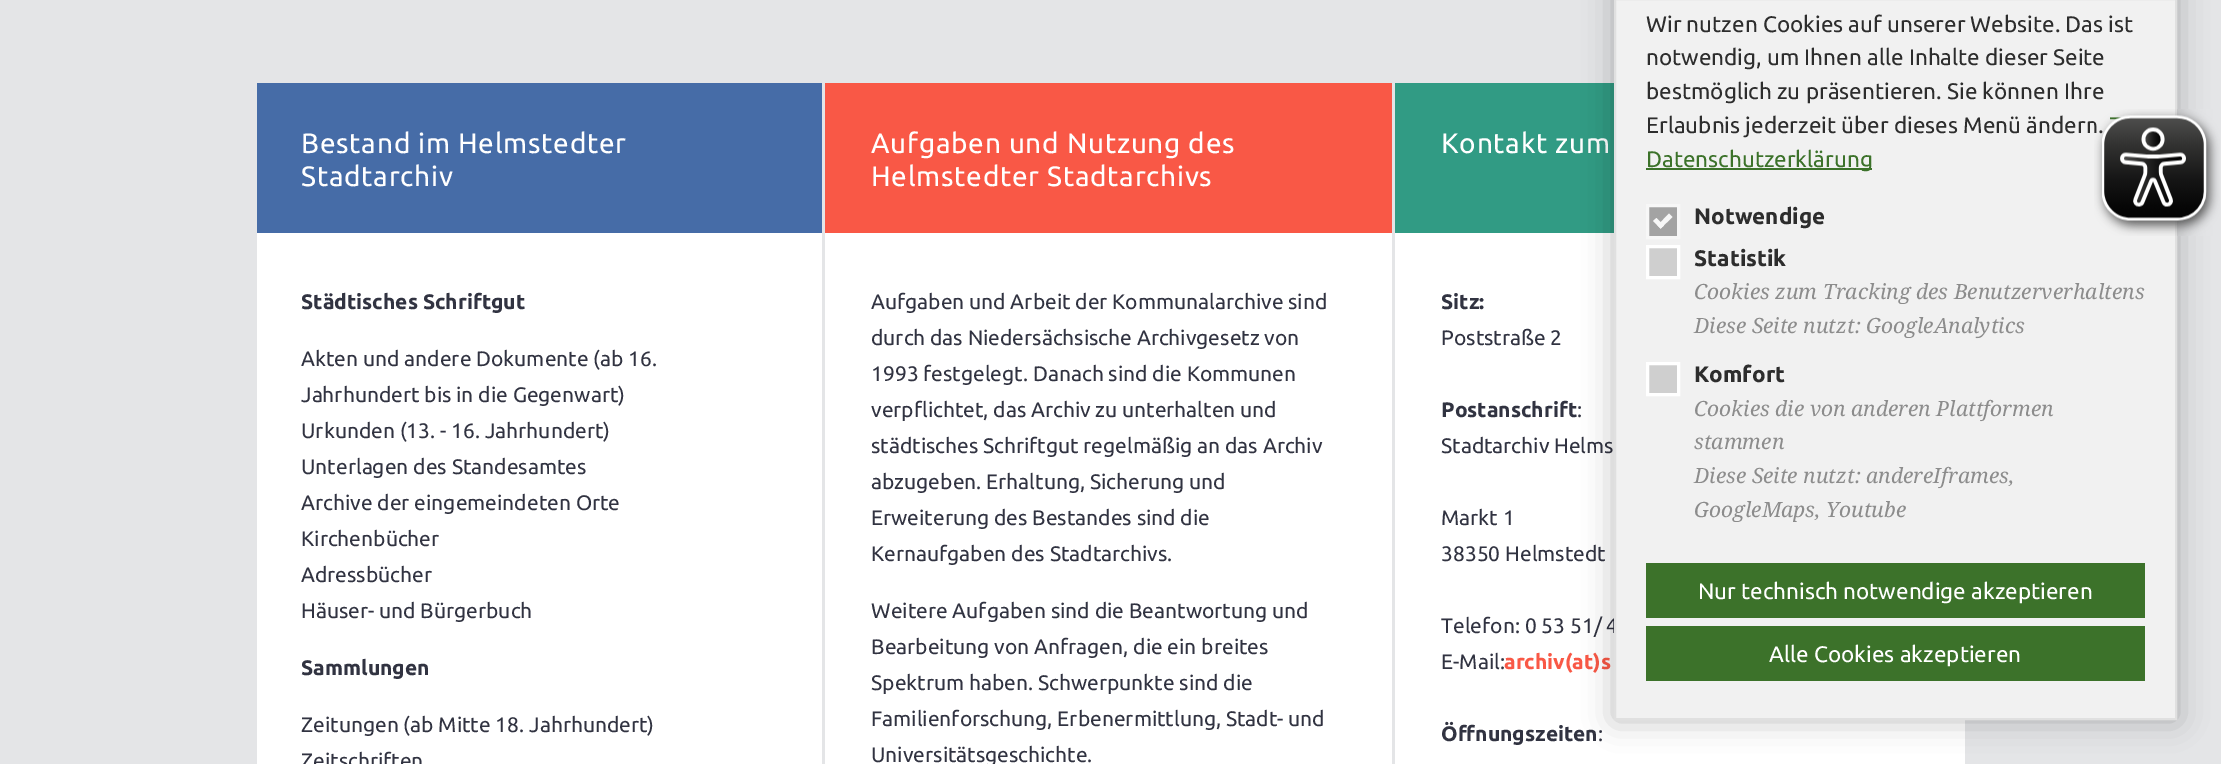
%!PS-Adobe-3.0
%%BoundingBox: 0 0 2221 764
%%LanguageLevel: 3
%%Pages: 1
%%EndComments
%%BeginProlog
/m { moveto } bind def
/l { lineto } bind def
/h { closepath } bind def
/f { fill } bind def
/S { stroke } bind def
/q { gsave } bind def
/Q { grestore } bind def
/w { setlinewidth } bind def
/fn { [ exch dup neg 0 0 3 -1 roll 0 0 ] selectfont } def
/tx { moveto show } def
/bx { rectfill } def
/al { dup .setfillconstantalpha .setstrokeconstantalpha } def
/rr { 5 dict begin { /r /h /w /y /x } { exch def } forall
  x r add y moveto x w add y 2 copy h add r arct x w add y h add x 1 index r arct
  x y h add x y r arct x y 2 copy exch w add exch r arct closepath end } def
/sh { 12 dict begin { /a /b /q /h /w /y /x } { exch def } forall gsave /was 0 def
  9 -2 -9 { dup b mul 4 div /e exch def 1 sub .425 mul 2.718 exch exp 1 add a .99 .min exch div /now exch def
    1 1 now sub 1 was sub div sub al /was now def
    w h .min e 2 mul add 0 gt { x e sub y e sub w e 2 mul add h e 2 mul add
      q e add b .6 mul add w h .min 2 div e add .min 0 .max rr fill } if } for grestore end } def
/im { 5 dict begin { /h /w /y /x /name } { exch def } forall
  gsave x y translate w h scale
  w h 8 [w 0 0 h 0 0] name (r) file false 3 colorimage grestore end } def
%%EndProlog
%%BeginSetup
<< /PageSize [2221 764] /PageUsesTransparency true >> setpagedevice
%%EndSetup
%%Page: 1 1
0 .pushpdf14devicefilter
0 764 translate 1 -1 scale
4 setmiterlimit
0.894 0.898 0.906 setrgbcolor
0 0 2221 764 bx
1 setgray
257 233 565 531 bx
0.275 0.424 0.655 setrgbcolor
257 83 565 150 bx
/Ubuntu-Regular 28 fn
1 setgray
301 153 m 0.75 0 (Bestand im Helmstedter) ashow
301 186 m 0.75 0 (Stadtarchiv) ashow
/Ubuntu-Bold 21 fn
0.192 0.2 0.255 setrgbcolor
(Städtisches Schriftgut) 301 309 tx
/Ubuntu-Regular 21 fn
(Akten und andere Dokumente \(ab 16.) 301 366 tx
(Jahrhundert bis in die Gegenwart\)) 301 402 tx
(Urkunden \(13. - 16. Jahrhundert\)) 301 438 tx
(Unterlagen des Standesamtes) 301 474 tx
(Archive der eingemeindeten Orte) 301 510 tx
(Kirchenbücher) 301 546 tx
(Adressbücher) 301 582 tx
(Häuser- und Bürgerbuch) 301 618 tx
/Ubuntu-Bold 21 fn
(Sammlungen) 301 675 tx
/Ubuntu-Regular 21 fn
(Zeitungen \(ab Mitte 18. Jahrhundert\)) 301 732 tx
(Zeitschriften) 301 768 tx
1 setgray
825 233 567 531 bx
0.976 0.345 0.275 setrgbcolor
825 83 567 150 bx
/Ubuntu-Regular 28 fn
1 setgray
871 153 m 0.75 0 (Aufgaben und Nutzung des) ashow
871 186 m 0.75 0 (Helmstedter Stadtarchivs) ashow
/Ubuntu-Regular 21 fn
0.192 0.2 0.255 setrgbcolor
(Aufgaben und Arbeit der Kommunalarchive sind) 871 309 tx
(durch das Niedersächsische Archivgesetz von) 871 345 tx
(1993 festgelegt. Danach sind die Kommunen) 871 381 tx
(verpflichtet, das Archiv zu unterhalten und) 871 417 tx
(städtisches Schriftgut regelmäßig an das Archiv) 871 453 tx
(abzugeben. Erhaltung, Sicherung und) 871 489 tx
(Erweiterung des Bestandes sind die) 871 525 tx
(Kernaufgaben des Stadtarchivs.) 871 561 tx
(Weitere Aufgaben sind die Beantwortung und) 871 618 tx
(Bearbeitung von Anfragen, die ein breites) 871 654 tx
(Spektrum haben. Schwerpunkte sind die) 871 690 tx
(Familienforschung, Erbenermittlung, Stadt- und) 871 726 tx
(Universitätsgeschichte.) 871 762 tx
1 setgray
1395 233 570 531 bx
0.192 0.608 0.518 setrgbcolor
1395 83 219 150 bx
/Ubuntu-Regular 28 fn
1 setgray
1441 153 m 0.75 0 (Kontakt zum) ashow
/Ubuntu-Bold 21 fn
0.192 0.2 0.255 setrgbcolor
(Sitz:) 1441 309 tx
/Ubuntu-Regular 21 fn
(Poststraße 2) 1441 345 tx
/Ubuntu-Bold 21 fn
(Postanschrift) 1441 417 tx
/Ubuntu-Regular 21 fn
(:) 1577 417 tx
(Stadtarchiv Helms) 1441 453 tx
(Markt 1) 1441 525 tx
(38350 Helmstedt) 1441 561 tx
(Telefon: 0 53 51/ 4) 1441 633 tx
(E-Mail:) 1441 669 tx
/Ubuntu-Bold 21 fn
0.976 0.345 0.275 setrgbcolor
(archiv\(at\)s) 1504 669 tx
0.192 0.2 0.255 setrgbcolor
(Öffnungszeiten) 1441 741 tx
/Ubuntu-Regular 21 fn
(:) 1598 741 tx
0 setgray
1614 -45 563 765 0 15 0.25 sh
0.945 setgray
1615 -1 m 2176 -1 l 2176 719 l 1615 719 l h q f Q
0.878 setgray
2 w
S
/Ubuntu-Regular 22.5 fn
0.176 setgray
(Wir nutzen Cookies auf unserer Website. Das ist) 1646 32 tx
(notwendig, um Ihnen alle Inhalte dieser Seite) 1646 65 tx
(bestmöglich zu präsentieren. Sie können Ihre) 1646 99 tx
(Erlaubnis jederzeit über dieses Menü ändern.) 1646 133 tx
0.235 0.447 0.165 setrgbcolor
1646 168 226 2 bx
(Datenschutzerklärung) 1646 167 tx
0.639 setgray
1647.5 205.5 m 1678.5 205.5 l 1678.5 237.5 l 1647.5 237.5 l h q f Q
0.969 setgray
3 w
S
1669 213.5 m 1672.5 217 l 1660.5 228.5 l 1657.5 225.5 l h f
1656.5 218 m 1664 225.5 l 1660.5 228.5 l 1653 221 l h f
/Ubuntu-Bold 22.5 fn
0.176 setgray
(Notwendige) 1694 224 tx
0.812 setgray
1647.5 246.5 m 1678.5 246.5 l 1678.5 277.5 l 1647.5 277.5 l h q f Q
1 setgray
S
0.176 setgray
(Statistik) 1694 266 tx
/NotoSerif-Italic 21 fn
0.549 setgray
(Cookies zum Tracking des Benutzerverhaltens) 1694 299 tx
(Diese Seite nutzt: GoogleAnalytics) 1694 333 tx
0.812 setgray
1647.5 363.5 m 1678.5 363.5 l 1678.5 394.5 l 1647.5 394.5 l h q f Q
1 setgray
S
/Ubuntu-Bold 22.5 fn
0.176 setgray
(Komfort) 1694 382 tx
/NotoSerif-Italic 21 fn
0.549 setgray
(Cookies die von anderen Plattformen) 1694 416 tx
(stammen) 1694 449 tx
(Diese Seite nutzt: andereIframes,) 1694 483 tx
(GoogleMaps, Youtube) 1694 517 tx
0.235 0.447 0.165 setrgbcolor
1646 563 499 55 bx
/Ubuntu-Regular 22.5 fn
1 setgray
(Nur technisch notwendige akzeptieren) 1698 599 tx
0.235 0.447 0.165 setrgbcolor
1646 626 499 55 bx
1 setgray
(Alle Cookies akzeptieren) 1769 662 tx
(image0.raw) 2094 109 126 127 im
.poppdf14devicefilter showpage
%%EOF
